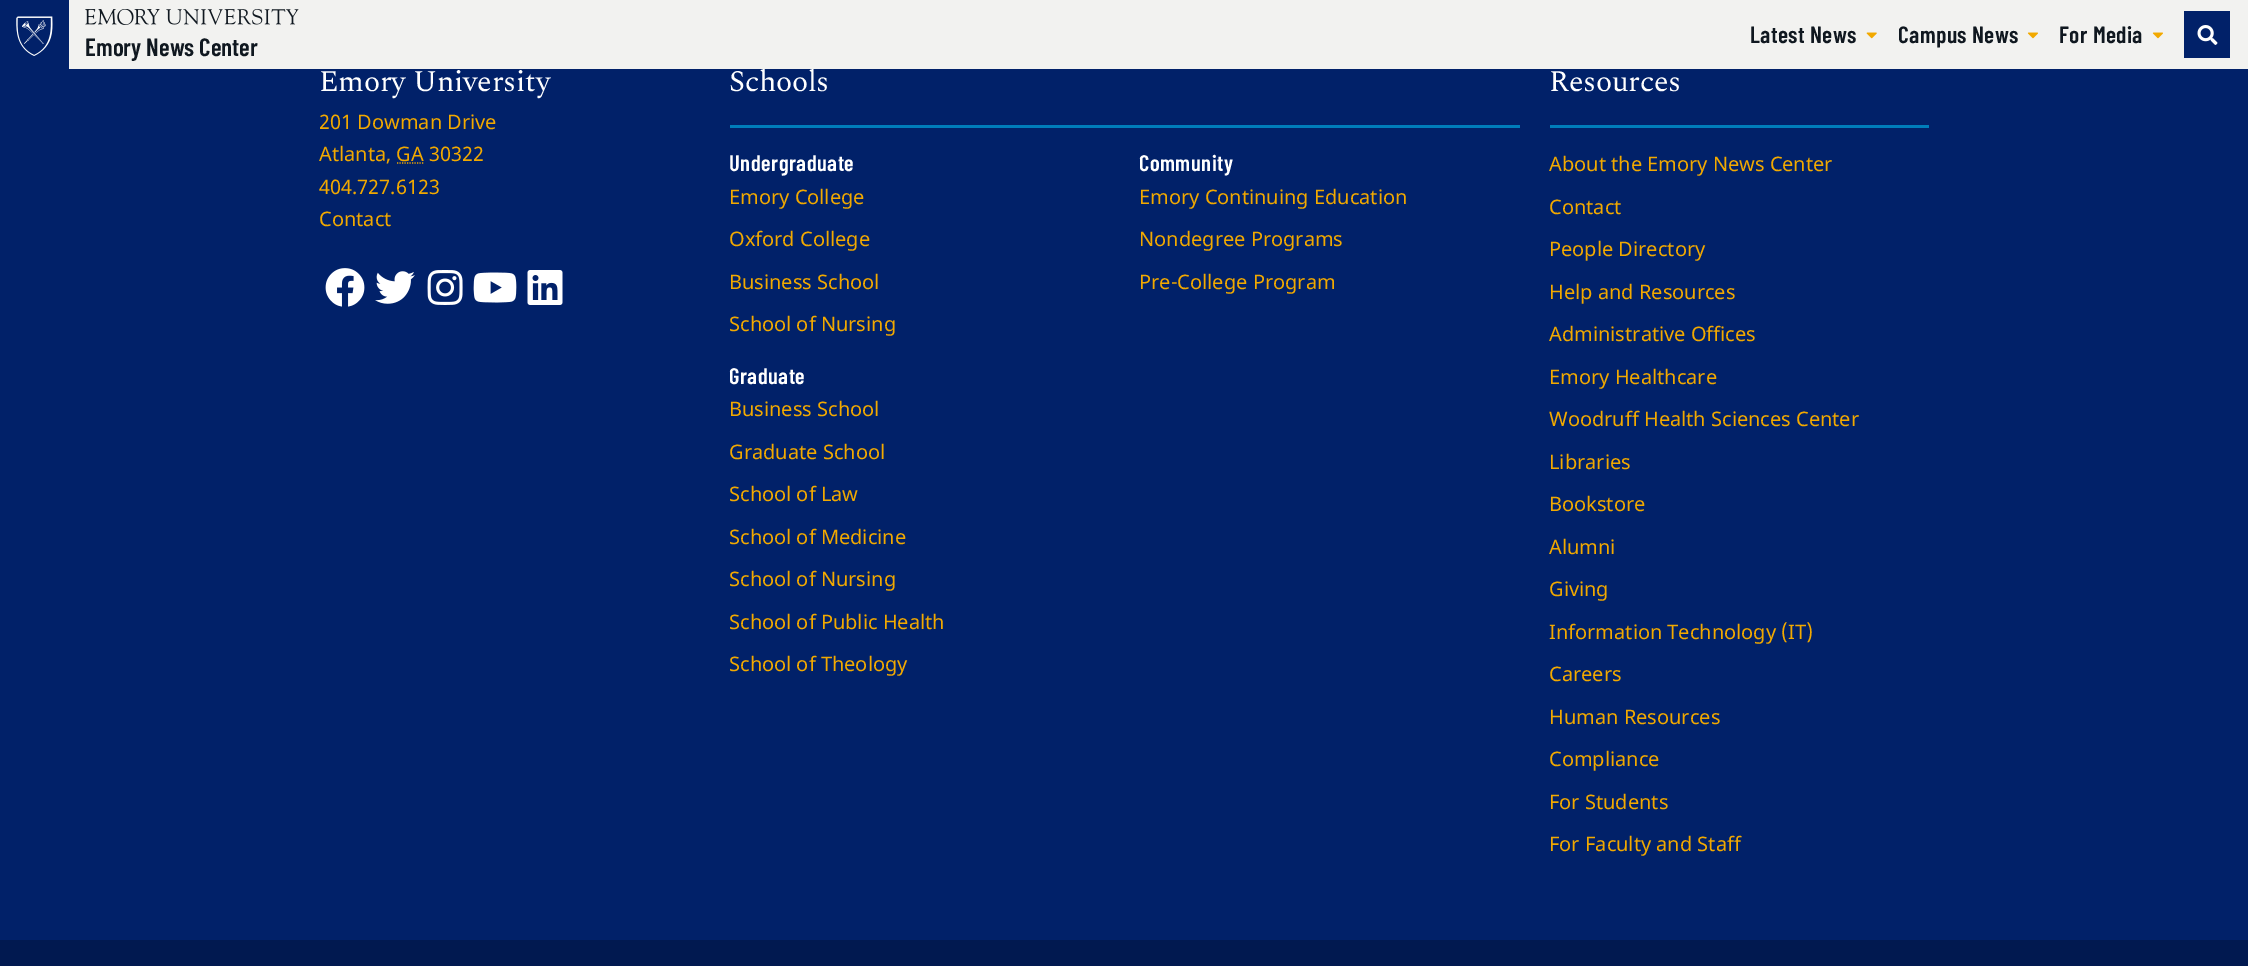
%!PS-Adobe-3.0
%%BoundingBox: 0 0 2248 966
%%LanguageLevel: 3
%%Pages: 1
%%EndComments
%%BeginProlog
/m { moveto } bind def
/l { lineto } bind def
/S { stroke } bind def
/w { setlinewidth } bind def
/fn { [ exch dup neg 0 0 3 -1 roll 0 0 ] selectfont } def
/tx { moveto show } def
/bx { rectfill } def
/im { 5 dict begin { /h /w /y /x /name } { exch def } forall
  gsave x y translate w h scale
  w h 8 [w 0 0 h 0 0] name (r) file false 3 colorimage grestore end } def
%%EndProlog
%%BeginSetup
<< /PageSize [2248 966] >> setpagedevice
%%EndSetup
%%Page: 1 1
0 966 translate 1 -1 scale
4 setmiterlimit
0.004 0.129 0.412 setrgbcolor
0 0 2248 966 bx
/Spectral-Regular 30 fn
1 setgray
729 91 m -0.25 0 (Schools) ashow
0.949 0.949 0.941 setrgbcolor
69 0 2179 69 bx
(image0.raw) 16 16 37 40 im
(image1.raw) 85 9 214 16 im
/BarlowCondensed-SemiBold 25 fn
0.063 0.094 0.125 setrgbcolor
(Emory News Center) 85 56 tx
/BarlowCondensed-SemiBold 23.5 fn
1750 43 m 0.4 0 (Latest News) ashow
(image2.raw) 1866 32 11 7 im
1898 43 m 0.4 0 (Campus News) ashow
(image3.raw) 2027 32 11 7 im
2059 43 m 0.4 0 (For Media) ashow
(image3.raw) 2152 32 11 7 im
0.004 0.129 0.412 setrgbcolor
2184 11 46 47 bx
(image4.raw) 2197 25 21 20 im
/Spectral-Regular 30 fn
1 setgray
319 91 m -0.25 0 (Emory University) ashow
/NotoSans-Regular 20 fn
0.949 0.663 0 setrgbcolor
(201 Dowman Drive) 319 129 tx
(Atlanta, GA 30322) 319 161 tx
1.2 w
[1.25 1.25] 0 setdash
397 163 m 424 163 l S
(404.727.6123) 319 194 tx
(Contact) 319 226 tx
(image5.raw) 325 268 40 39 im
(image6.raw) 375 271 40 33 im
(image7.raw) 427 270 36 35 im
(image8.raw) 473 272 44 31 im
(image9.raw) 527 270 36 35 im
0 0.49 0.729 setrgbcolor
730 125 790 3 bx
/BarlowCondensed-SemiBold 22.5 fn
1 setgray
729 171 m 0.5 0 (Undergraduate) ashow
/NotoSans-Regular 20 fn
0.949 0.663 0 setrgbcolor
(Emory College) 729 204 tx
(Oxford College) 729 246 tx
(Business School) 729 289 tx
(School of Nursing) 729 331 tx
/BarlowCondensed-SemiBold 22.5 fn
1 setgray
1139 171 m 0.5 0 (Community) ashow
/NotoSans-Regular 20 fn
0.949 0.663 0 setrgbcolor
(Emory Continuing Education) 1139 204 tx
(Nondegree Programs) 1139 246 tx
(Pre-College Program) 1139 289 tx
/BarlowCondensed-SemiBold 22.5 fn
1 setgray
729 384 m 0.5 0 (Graduate) ashow
/NotoSans-Regular 20 fn
0.949 0.663 0 setrgbcolor
(Business School) 729 416 tx
(Graduate School) 729 459 tx
(School of Law) 729 501 tx
(School of Medicine) 729 544 tx
(School of Nursing) 729 586 tx
(School of Public Health) 729 629 tx
(School of Theology) 729 671 tx
0 0.49 0.729 setrgbcolor
1550 125 379 3 bx
/Spectral-Regular 30 fn
1 setgray
1549 91 m -0.25 0 (Resources) ashow
/NotoSans-Regular 20 fn
0.949 0.663 0 setrgbcolor
(About the Emory News Center) 1549 171 tx
(Contact) 1549 214 tx
(People Directory) 1549 256 tx
(Help and Resources) 1549 299 tx
(Administrative Offices) 1549 341 tx
(Emory Healthcare) 1549 384 tx
(Woodruff Health Sciences Center) 1549 426 tx
(Libraries) 1549 469 tx
(Bookstore) 1549 511 tx
(Alumni) 1549 554 tx
(Giving) 1549 596 tx
(Information Technology \(IT\)) 1549 639 tx
(Careers) 1549 681 tx
(Human Resources) 1549 724 tx
(Compliance) 1549 766 tx
(For Students) 1549 809 tx
(For Faculty and Staff) 1549 851 tx
0.004 0.098 0.314 setrgbcolor
0 940 2248 26 bx
showpage
%%EOF
